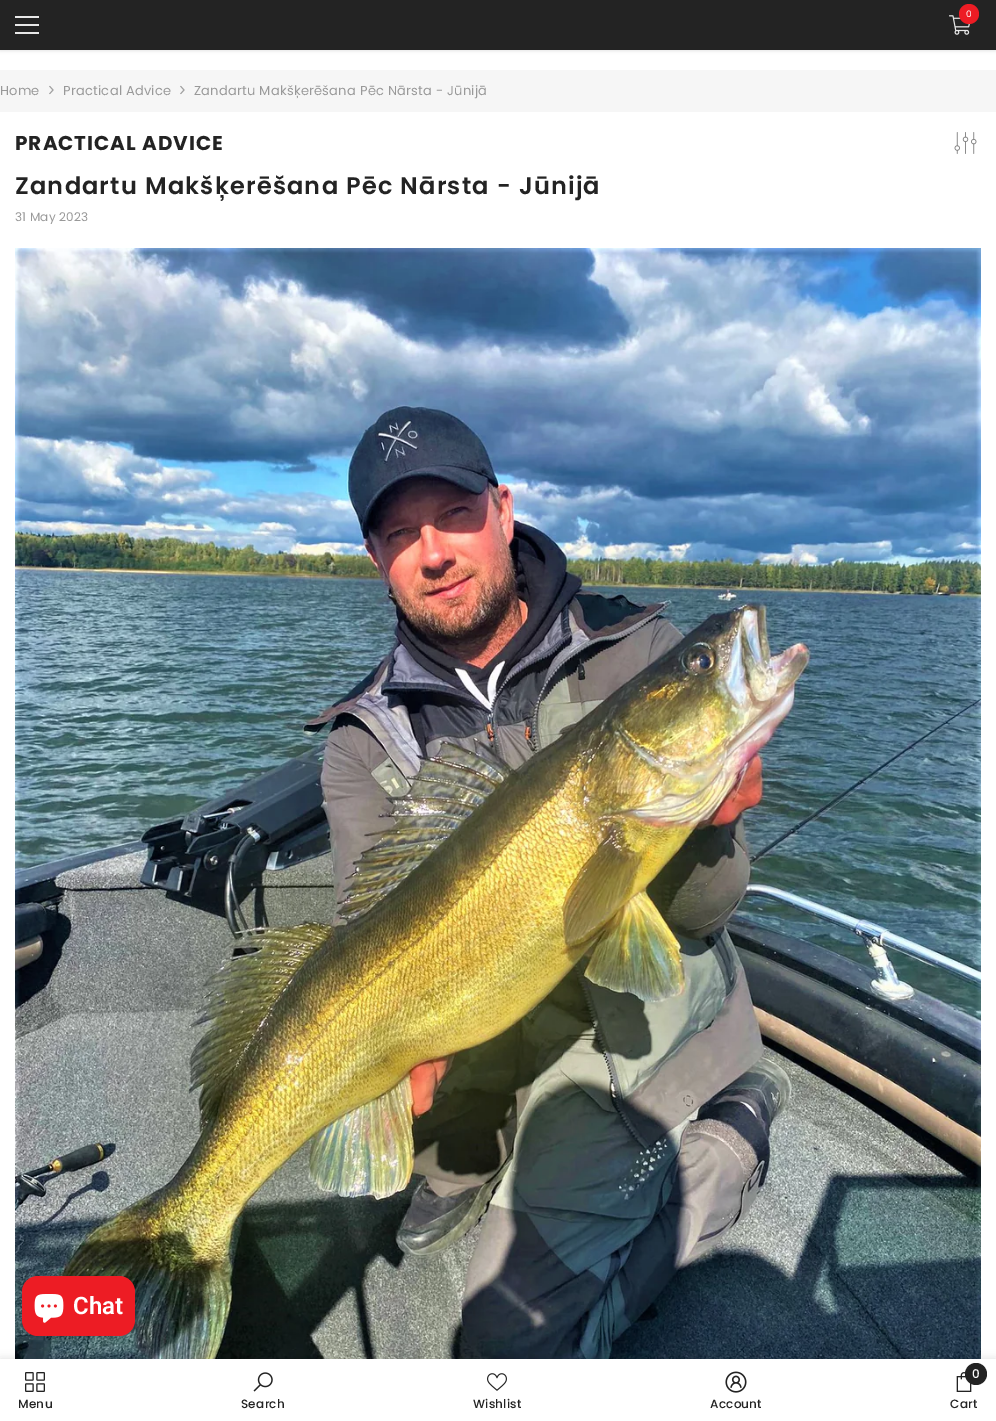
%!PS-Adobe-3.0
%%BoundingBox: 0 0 996 1421
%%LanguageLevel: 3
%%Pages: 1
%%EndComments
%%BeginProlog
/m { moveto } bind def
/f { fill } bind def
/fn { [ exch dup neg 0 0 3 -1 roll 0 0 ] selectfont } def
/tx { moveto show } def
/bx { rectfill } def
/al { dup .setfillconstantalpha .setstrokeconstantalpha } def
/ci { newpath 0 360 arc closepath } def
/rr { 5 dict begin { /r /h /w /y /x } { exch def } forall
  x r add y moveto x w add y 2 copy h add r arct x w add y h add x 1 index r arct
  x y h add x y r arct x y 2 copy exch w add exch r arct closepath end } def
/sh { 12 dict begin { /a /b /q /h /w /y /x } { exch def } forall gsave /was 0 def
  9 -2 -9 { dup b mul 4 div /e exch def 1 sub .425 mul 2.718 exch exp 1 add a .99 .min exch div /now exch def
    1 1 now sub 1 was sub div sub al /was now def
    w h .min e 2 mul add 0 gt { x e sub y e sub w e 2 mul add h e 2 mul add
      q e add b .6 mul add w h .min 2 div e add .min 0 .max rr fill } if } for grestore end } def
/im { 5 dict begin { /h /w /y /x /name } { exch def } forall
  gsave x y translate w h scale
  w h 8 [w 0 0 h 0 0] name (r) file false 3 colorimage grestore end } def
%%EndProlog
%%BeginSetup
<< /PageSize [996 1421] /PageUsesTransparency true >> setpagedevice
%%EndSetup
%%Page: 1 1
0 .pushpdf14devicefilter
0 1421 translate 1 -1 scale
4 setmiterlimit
1 setgray
0 0 996 1421 bx
0 setgray
0 1 996 50 0 1.5 0.1 sh
0.137 setgray
0 0 996 50 bx
(image0.raw) 949 15 22 20 im
0.929 0.11 0.141 setrgbcolor
969 14 10 ci f
/Poppins-Regular 9 fn
1 setgray
(0) 966 17 tx
0.91 setgray
15 24 24 2 bx
15 16 24 2 bx
15 32 24 2 bx
0.965 setgray
0 70 996 42 bx
/Poppins-Regular 13 fn
0.6 setgray
0 95 m 0.25 0 (Home) ashow
(image1.raw) 49 85 5 10 im
63 95 m 0.25 0 (Practical Advice) ashow
(image1.raw) 180 85 5 10 im
194 95 m 0.25 0 (Zandartu Makšķerēšana Pēc Nārsta - Jūnijā) ashow
/Poppins-Bold 20 fn
0.137 setgray
15 150 m 1 0 (PRACTICAL ADVICE) ashow
(image2.raw) 954 132 23 22 im
/Poppins-SemiBold 24 fn
15 194 m 1.2 0 (Zandartu Makšķerēšana Pēc Nārsta - Jūnijā) ashow
/Poppins-Regular 12 fn
0.6 setgray
15 221 m 0.25 0 (31 May 2023) ashow
(image3.raw) 15 248 966 1111 im
0 setgray
0 1359 996 62 0 4.5 0.12 sh
1 setgray
0 1359 996 62 bx
(image4.raw) 25 1372 20 20 im
/Poppins-Medium 12 fn
0.137 setgray
18 1408 m 0.25 0 (Menu) ashow
(image5.raw) 253 1372 20 20 im
241 1408 m 0.25 0 (Search) ashow
(image6.raw) 487 1373 20 18 im
473 1408 m 0.25 0 (Wishlist) ashow
(image7.raw) 725 1371 22 22 im
710 1408 m 0.25 0 (Account) ashow
(image8.raw) 956 1372 16 20 im
976 1374 11 ci f
1 setgray
(0) 972 1378 tx
0.137 setgray
950 1408 m 0.25 0 (Cart) ashow
0 setgray
22 1276 113 60 16 2.5 0.15 sh
0.929 0.11 0.141 setrgbcolor
22 1276 113 60 16 rr f
(image9.raw) 34 1294 30 29 im
/Roboto-SemiBold 24 fn
1 setgray
(Chat) 73 1314 tx
.poppdf14devicefilter showpage
%%EOF
